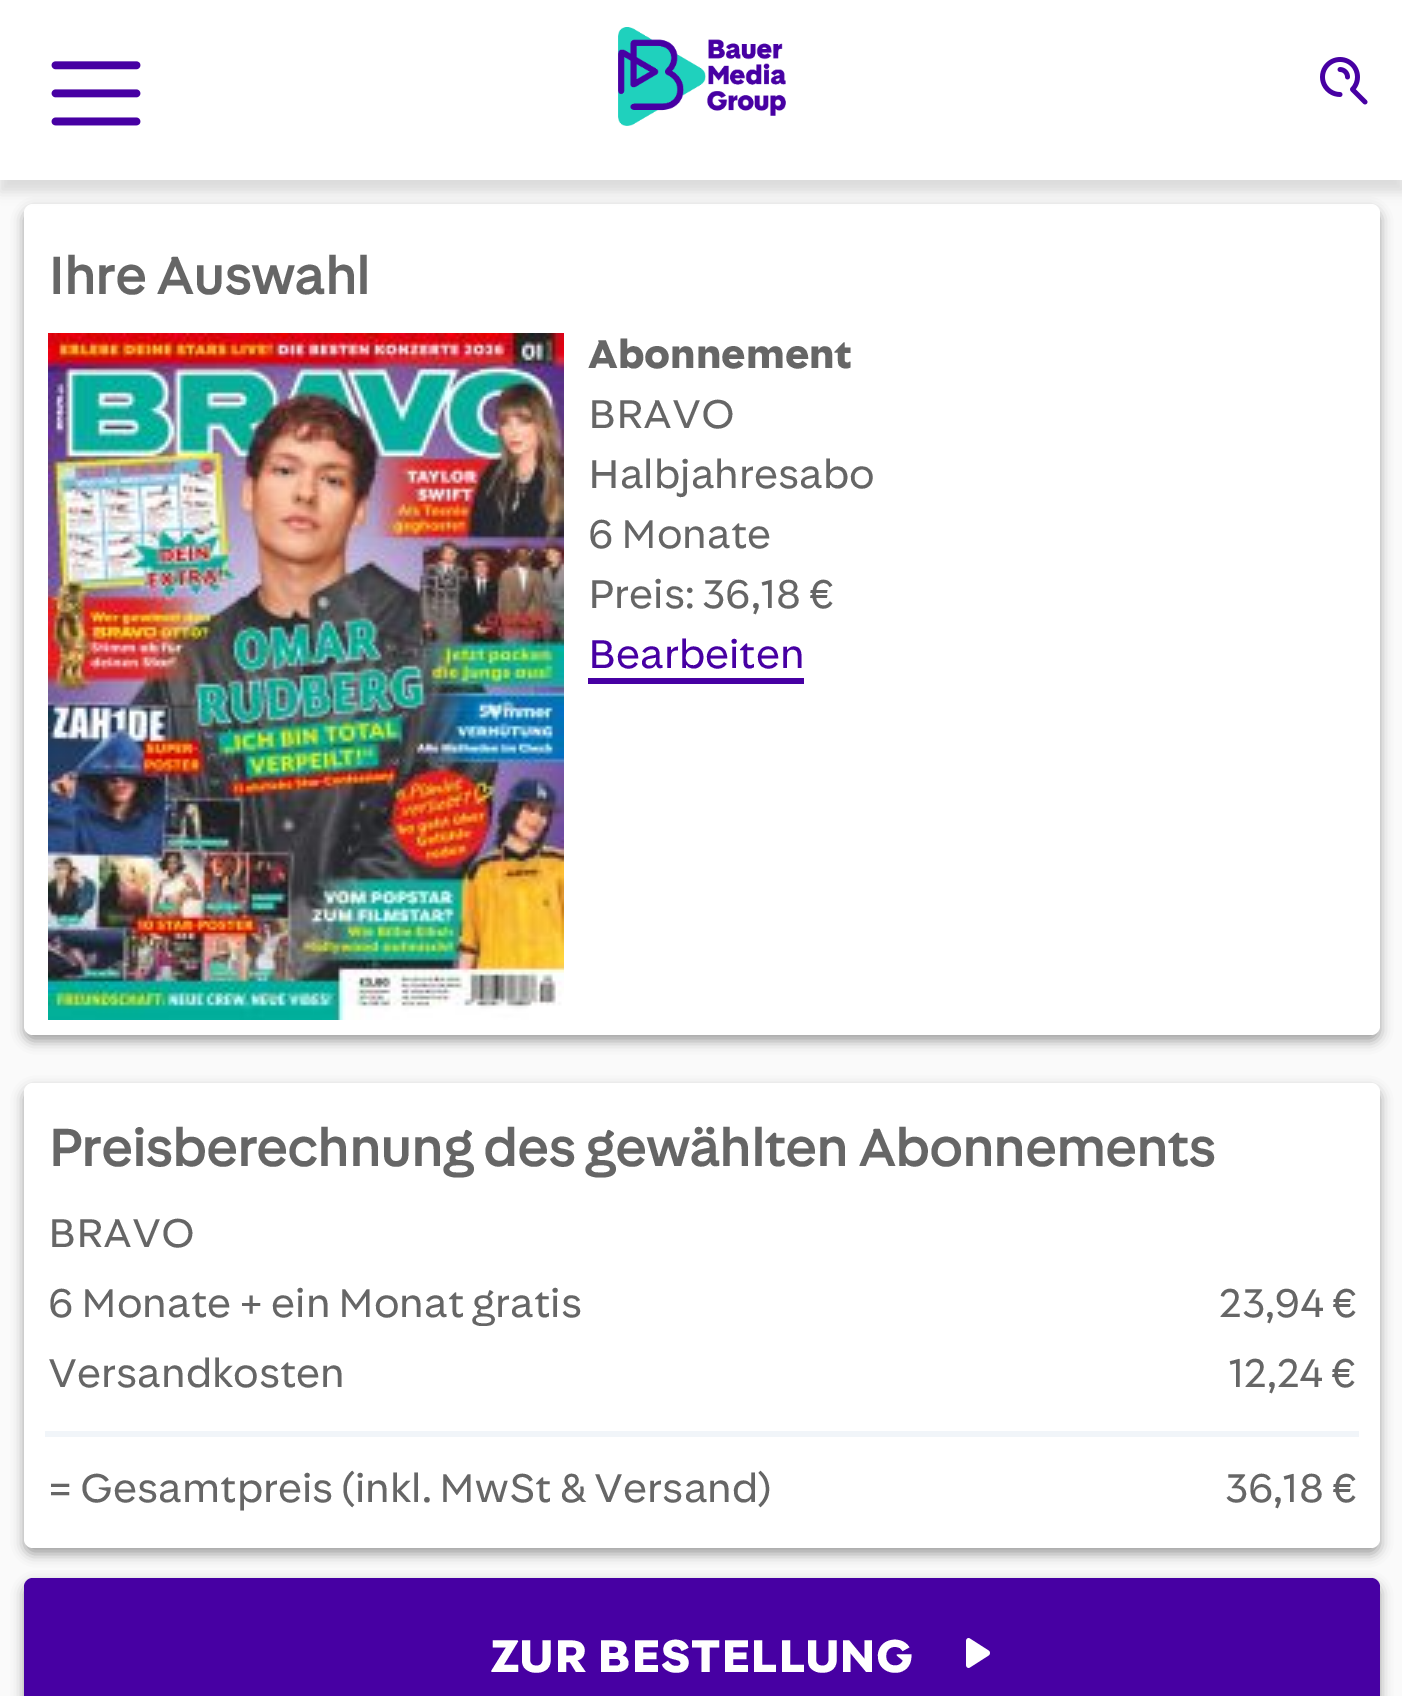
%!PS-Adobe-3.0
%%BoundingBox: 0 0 1402 1696
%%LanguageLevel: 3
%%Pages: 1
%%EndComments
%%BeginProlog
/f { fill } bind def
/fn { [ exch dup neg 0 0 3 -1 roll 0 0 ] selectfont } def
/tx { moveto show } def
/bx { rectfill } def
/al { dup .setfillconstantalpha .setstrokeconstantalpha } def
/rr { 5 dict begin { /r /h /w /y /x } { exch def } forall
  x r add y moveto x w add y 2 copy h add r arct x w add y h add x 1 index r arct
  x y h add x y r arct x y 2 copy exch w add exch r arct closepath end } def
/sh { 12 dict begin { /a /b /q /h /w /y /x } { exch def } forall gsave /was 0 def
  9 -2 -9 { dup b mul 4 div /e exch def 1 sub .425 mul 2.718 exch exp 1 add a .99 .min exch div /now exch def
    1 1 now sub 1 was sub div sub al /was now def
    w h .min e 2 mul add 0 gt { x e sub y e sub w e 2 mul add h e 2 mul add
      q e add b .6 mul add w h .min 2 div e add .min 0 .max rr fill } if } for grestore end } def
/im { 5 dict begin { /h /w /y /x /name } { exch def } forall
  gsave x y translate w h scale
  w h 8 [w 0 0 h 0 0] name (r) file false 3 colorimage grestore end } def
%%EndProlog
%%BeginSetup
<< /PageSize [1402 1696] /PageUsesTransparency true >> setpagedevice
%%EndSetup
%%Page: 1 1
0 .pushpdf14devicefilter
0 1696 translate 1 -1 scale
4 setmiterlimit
0.98 setgray
0 0 1402 1696 bx
0 setgray
24 210 1356 831 9 6 0.35 sh
1 setgray
24 204 1356 831 9 rr f
0 setgray
0 12 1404 180 0 6 0.12 sh
1 setgray
0 0 1402 180 bx
(image0.raw) 51 61 90 65 im
(image1.raw) 618 27 168 99 im
(image2.raw) 1320 57 48 48 im
/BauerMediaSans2-Bold 54 fn
0.4 setgray
(Ihre Auswahl) 48 294 tx
(image3.raw) 48 333 516 687 im
/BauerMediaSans-Bold 42 fn
(Abonnement) 588 368 tx
/BauerMediaSans-Regular 42 fn
(BRAVO) 588 428 tx
(Halbjahresabo) 588 488 tx
(6 Monate) 588 548 tx
(Preis: 36,18 €) 588 608 tx
0.278 0 0.639 setrgbcolor
(Bearbeiten) 588 668 tx
588 678 216 6 bx
0 setgray
24 1089 1356 465 9 6 0.35 sh
1 setgray
24 1083 1356 465 9 rr f
/BauerMediaSans2-Bold 54 fn
0.4 setgray
(Preisberechnung des gewählten Abonnements) 48 1166 tx
0.945 0.961 0.976 setrgbcolor
45 1431 1314 6 bx
/BauerMediaSans-Regular 42 fn
0.4 setgray
(BRAVO) 48 1247 tx
(6 Monate + ein Monat gratis) 48 1317 tx
(23,94 €) 1219 1317 tx
(Versandkosten) 48 1387 tx
(12,24 €) 1229 1387 tx
(= Gesamtpreis \(inkl. MwSt & Versand\)) 48 1502 tx
(36,18 €) 1225 1502 tx
0 setgray
24 1584 1356 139 9 6 0.35 sh
0.278 0 0.639 setrgbcolor
24 1578 1356 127 9 rr f
/BauerMediaSans-Bold 48 fn
1 setgray
(ZUR BESTELLUNG) 490 1672 tx
(image4.raw) 966 1638 24 30 im
.poppdf14devicefilter showpage
%%EOF
